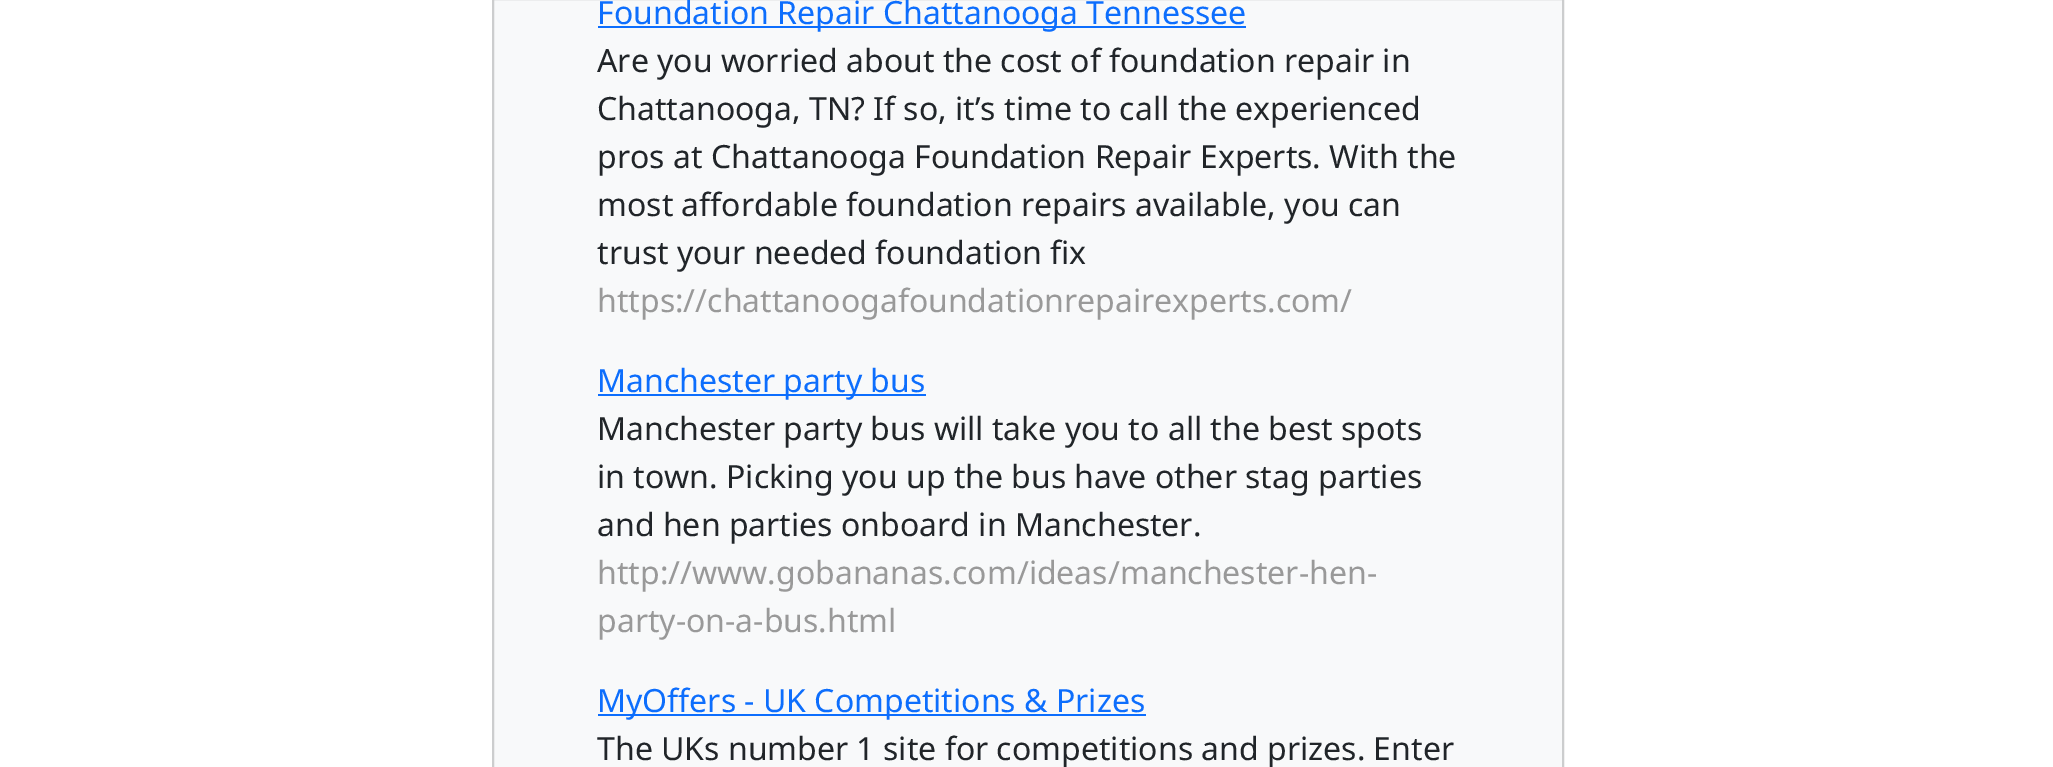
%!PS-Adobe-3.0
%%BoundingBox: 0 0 2053 767
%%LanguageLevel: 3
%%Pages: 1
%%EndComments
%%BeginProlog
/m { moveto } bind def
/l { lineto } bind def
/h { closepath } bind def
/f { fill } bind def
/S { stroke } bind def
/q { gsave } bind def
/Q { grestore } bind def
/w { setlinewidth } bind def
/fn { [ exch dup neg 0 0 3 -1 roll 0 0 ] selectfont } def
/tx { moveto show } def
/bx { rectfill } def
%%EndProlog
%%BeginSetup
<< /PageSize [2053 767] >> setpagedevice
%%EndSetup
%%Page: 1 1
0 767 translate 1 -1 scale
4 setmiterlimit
1 setgray
0 0 2053 767 bx
0.973 0.976 0.98 setrgbcolor
493 -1 m 1563 -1 l 1563 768 l 493 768 l h q f Q
0.8 0.804 0.808 setrgbcolor
2 w
S
0.051 0.431 0.992 setrgbcolor
598 26 648 2 bx
/NotoSans-Regular 32 fn
(Foundation Repair Chattanooga Tennessee) 597 24 tx
0.129 0.145 0.161 setrgbcolor
(Are you worried about the cost of foundation repair in) 597 72 tx
(Chattanooga, TN? If so, it’s time to call the experienced) 597 120 tx
(pros at Chattanooga Foundation Repair Experts. With the) 597 168 tx
(most affordable foundation repairs available, you can) 597 216 tx
(trust your needed foundation fix) 597 264 tx
0.6 setgray
(https://chattanoogafoundationrepairexperts.com/) 597 312 tx
0.051 0.431 0.992 setrgbcolor
598 394 328 2 bx
(Manchester party bus) 597 392 tx
0.129 0.145 0.161 setrgbcolor
(Manchester party bus will take you to all the best spots) 597 440 tx
(in town. Picking you up the bus have other stag parties) 597 488 tx
(and hen parties onboard in Manchester.) 597 536 tx
0.6 setgray
(http://www.gobananas.com/ideas/manchester-hen-) 597 584 tx
(party-on-a-bus.html) 597 632 tx
0.051 0.431 0.992 setrgbcolor
598 714 548 2 bx
(MyOffers - UK Competitions & Prizes) 597 712 tx
0.129 0.145 0.161 setrgbcolor
(The UKs number 1 site for competitions and prizes. Enter) 597 760 tx
showpage
%%EOF
